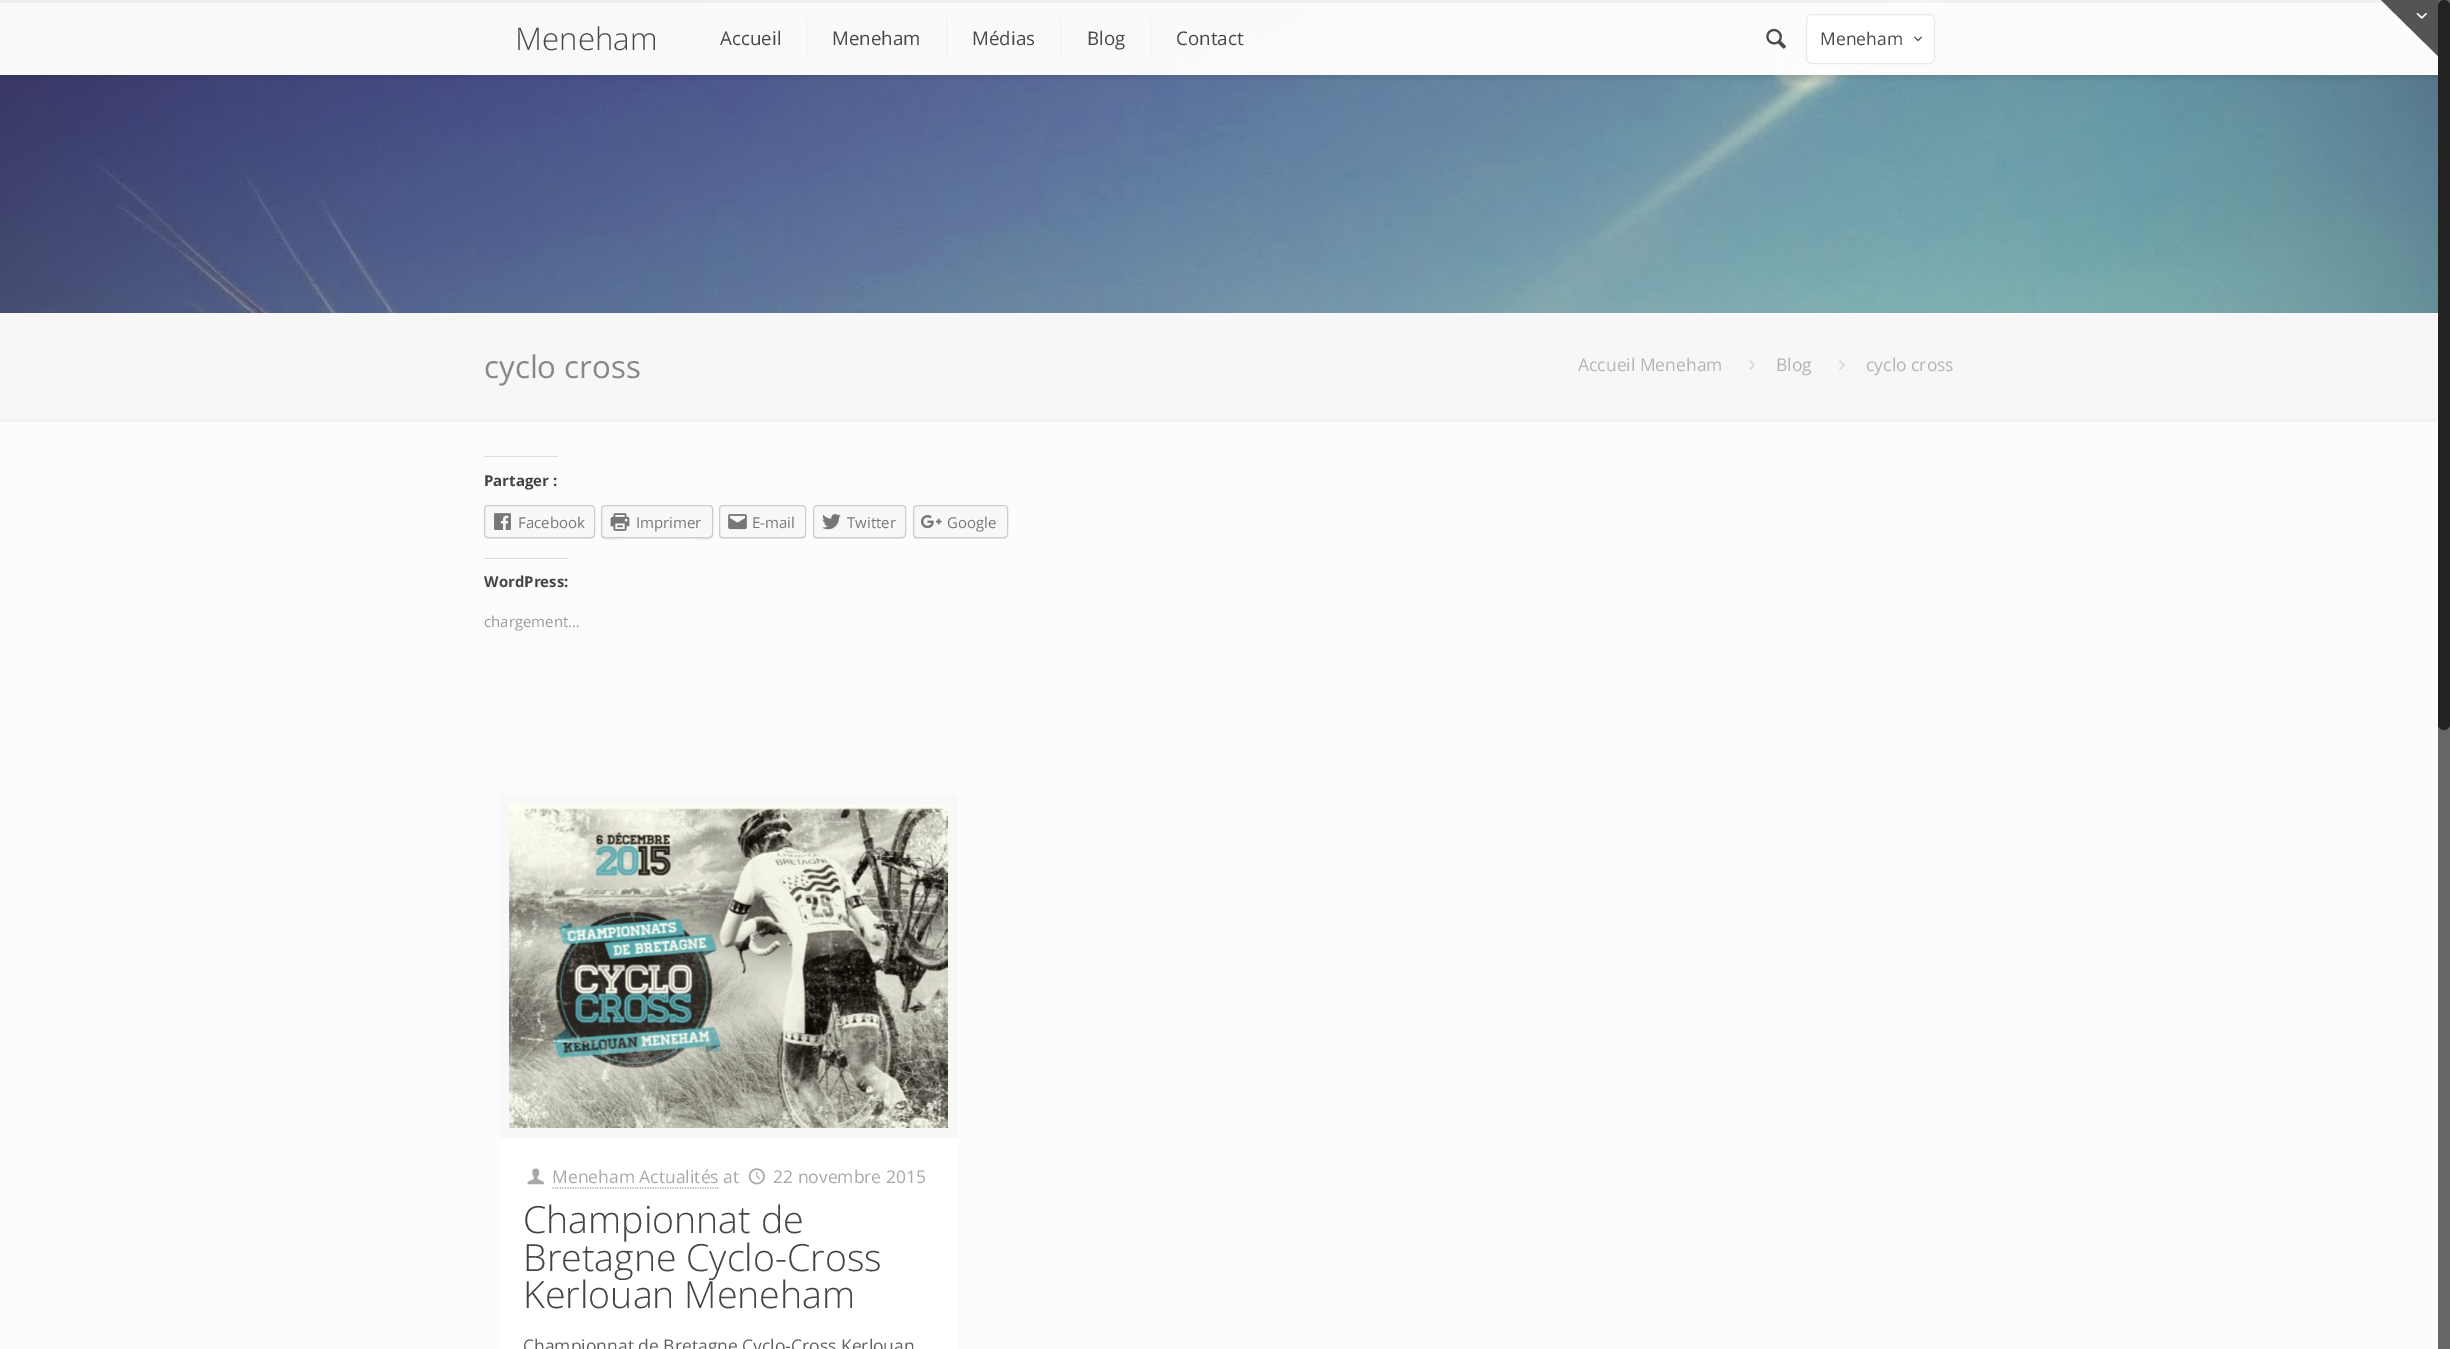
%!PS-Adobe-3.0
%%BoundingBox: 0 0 2450 1349
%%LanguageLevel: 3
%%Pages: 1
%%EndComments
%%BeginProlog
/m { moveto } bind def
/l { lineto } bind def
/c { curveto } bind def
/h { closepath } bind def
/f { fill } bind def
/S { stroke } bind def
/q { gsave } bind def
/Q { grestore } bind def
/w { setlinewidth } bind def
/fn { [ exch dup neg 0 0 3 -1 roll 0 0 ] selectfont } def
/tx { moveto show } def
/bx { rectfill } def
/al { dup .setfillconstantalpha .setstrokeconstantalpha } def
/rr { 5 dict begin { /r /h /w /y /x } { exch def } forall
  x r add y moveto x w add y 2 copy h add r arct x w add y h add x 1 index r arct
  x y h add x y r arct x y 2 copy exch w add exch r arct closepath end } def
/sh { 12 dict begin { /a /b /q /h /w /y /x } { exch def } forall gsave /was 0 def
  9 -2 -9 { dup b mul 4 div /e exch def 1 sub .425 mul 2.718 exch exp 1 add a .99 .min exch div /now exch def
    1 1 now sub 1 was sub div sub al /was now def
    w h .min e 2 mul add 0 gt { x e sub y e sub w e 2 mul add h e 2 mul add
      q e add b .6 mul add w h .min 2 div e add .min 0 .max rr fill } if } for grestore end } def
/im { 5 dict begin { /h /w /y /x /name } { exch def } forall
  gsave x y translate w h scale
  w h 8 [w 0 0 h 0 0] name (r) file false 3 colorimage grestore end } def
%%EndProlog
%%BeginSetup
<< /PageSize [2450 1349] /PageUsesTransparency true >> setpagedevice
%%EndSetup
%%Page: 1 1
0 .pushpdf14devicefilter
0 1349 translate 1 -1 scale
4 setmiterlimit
0.988 setgray
0 0 2450 1349 bx
(image1.raw) 0 0 2438 313 im
q
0 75 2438 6 rectclip
0 setgray
0 3 2450 75 0 3 0.1 sh
Q
0.97 al
1 setgray
0 0 2438 75 bx
0.04 al
0 setgray
0 0 2384 3 bx
1 al
0.329 setgray
2438 0 m 2438 56 l 2381 0 l h f
(image0.raw) 2416 12 11 7 im
0.4 setgray
2438 0 12 1349 bx
0.133 setgray
2438 0 12 730 6 rr f
/OpenSans-Light 31.25 fn
0.286 0.286 0.29 setrgbcolor
(Meneham) 515 50 tx
0.933 0.933 0.937 setrgbcolor
806 19 1 37 bx
/OpenSans-Regular 18.75 fn
0.286 0.286 0.29 setrgbcolor
(Accueil) 720 45 tx
0.933 0.933 0.937 setrgbcolor
946 19 1 37 bx
0.286 0.286 0.29 setrgbcolor
(Meneham) 832 45 tx
0.933 0.933 0.941 setrgbcolor
1060 19 1 37 bx
0.286 0.286 0.29 setrgbcolor
(Médias) 972 45 tx
0.933 0.933 0.941 setrgbcolor
1150 19 1 37 bx
0.286 0.286 0.29 setrgbcolor
(Blog) 1087 45 tx
(Contact) 1176 45 tx
(image2.raw) 1766 28 20 21 im
0.97 al
1 setgray
1806.5 14.5 128 49 5.5 rr f
1 al
0.914 setgray
1806.5 14.5 128 49 5.5 rr S
/OpenSans-Regular 17.5 fn
0.286 0.286 0.29 setrgbcolor
(Meneham) 1820 45 tx
(image3.raw) 1914 36 9 6 im
0.969 setgray
0 313 2438 106 bx
/OpenSans-Regular 31.25 fn
0.533 setgray
(cyclo cross) 484 378 tx
/OpenSans-Regular 17.5 fn
0.706 setgray
(Accueil Meneham) 1578 371 tx
(image4.raw) 1749 360 6 10 im
(Blog) 1776 371 tx
(image4.raw) 1839 360 6 10 im
(cyclo cross) 1866 371 tx
0.949 setgray
0 419 2437 3 bx
0.867 setgray
484 456 74 1 bx
/OpenSans-Bold 15 fn
0.267 setgray
(Partager :) 484 486 tx
0.91 setgray
484 535 m 484 537 486 539 488 539 c 591 539 l 593 539 595 537 595 535 c 595 534 l 595 536 593 538 591 538 c 488 538 l 486 538 485 537 484 535 c h f
0.973 setgray
484.5 505.5 110 32 3.5 rr q f Q
0.8 setgray
S
(image5.raw) 494 513 17 17 im
/OpenSans-Regular 15 fn
0.467 setgray
(Facebook) 518 528 tx
0.91 setgray
601 509 m 601 536 l 602 542 617 539 622 539 c 692 539 l 697 539 712 542 713 536 c 713 527 l 713 523 714 511 712 508 c 712 525 l 712 528 714 537 709 538 c 605 538 l 601 537 601 532 601 530 c h f
0.973 setgray
601.5 505.5 111 32 3.5 rr q f Q
0.8 setgray
S
(image6.raw) 610 513 20 18 im
0.467 setgray
(Imprimer) 636 528 tx
0.91 setgray
719 535 m 719 537 721 539 723 539 c 802 539 l 804 539 806 537 806 535 c 805 537 804 538 802 538 c 722 538 l 721 538 720 537 719 535 c h f
0.973 setgray
719.5 505.5 86 32 3.5 rr q f Q
0.8 setgray
S
(image7.raw) 728 514 19 16 im
0.467 setgray
(E-mail) 752 528 tx
0.91 setgray
813 536 m 813 538 815 539 817 539 c 902 539 l 904 539 906 537 906 535 c 905 537 904 538 902 538 c 816 538 l 815 538 814 537 813 536 c h f
0.973 setgray
813.5 505.5 92 32 3.5 rr q f Q
0.8 setgray
S
(image8.raw) 822 514 19 16 im
0.467 setgray
(Twitter) 847 528 tx
0.91 setgray
913 536 m 913 538 915 539 917 539 c 1004 539 l 1006 539 1008 537 1008 535 c 1008 510 l 1007 508 l 1008 525 l 1008 541 1007 538 989 538 c 931 538 l 929 538 916 540 913 536 c h f
0.973 setgray
913.5 505.5 94 32 3.5 rr q f Q
0.8 setgray
S
(image9.raw) 920 515 22 14 im
0.467 setgray
(Google) 947 528 tx
0.867 setgray
484 558 85 1 bx
/OpenSans-Bold 15 fn
0.267 setgray
(WordPress:) 484 587 tx
/OpenSans-Regular 15 fn
0.6 setgray
(chargement…) 484 627 tx
1 setgray
499 804 459 545 bx
0.973 setgray
10 w
504 799 449 334 rectstroke
(image10.raw) 509 804 439 324 im
(image11.raw) 527 1168 17 17 im
/OpenSans-Regular 17.5 fn
0.659 setgray
(Meneham Actualités at) 552 1183 tx
1.2 w
[1.25 1.25] 0 setdash
552.5 1188 m 719 1188 l S
(image12.raw) 748 1168 17 17 im
(22 novembre 2015) 773 1183 tx
/OpenSans-Light 37.5 fn
0.267 setgray
(Championnat de) 523 1233 tx
(Bretagne Cyclo-Cross) 523 1271 tx
(Kerlouan Meneham) 523 1308 tx
/OpenSans-Regular 17.5 fn
0.384 setgray
(Championnat de Bretagne Cyclo-Cross Kerlouan) 523 1352 tx
.poppdf14devicefilter showpage
%%EOF
